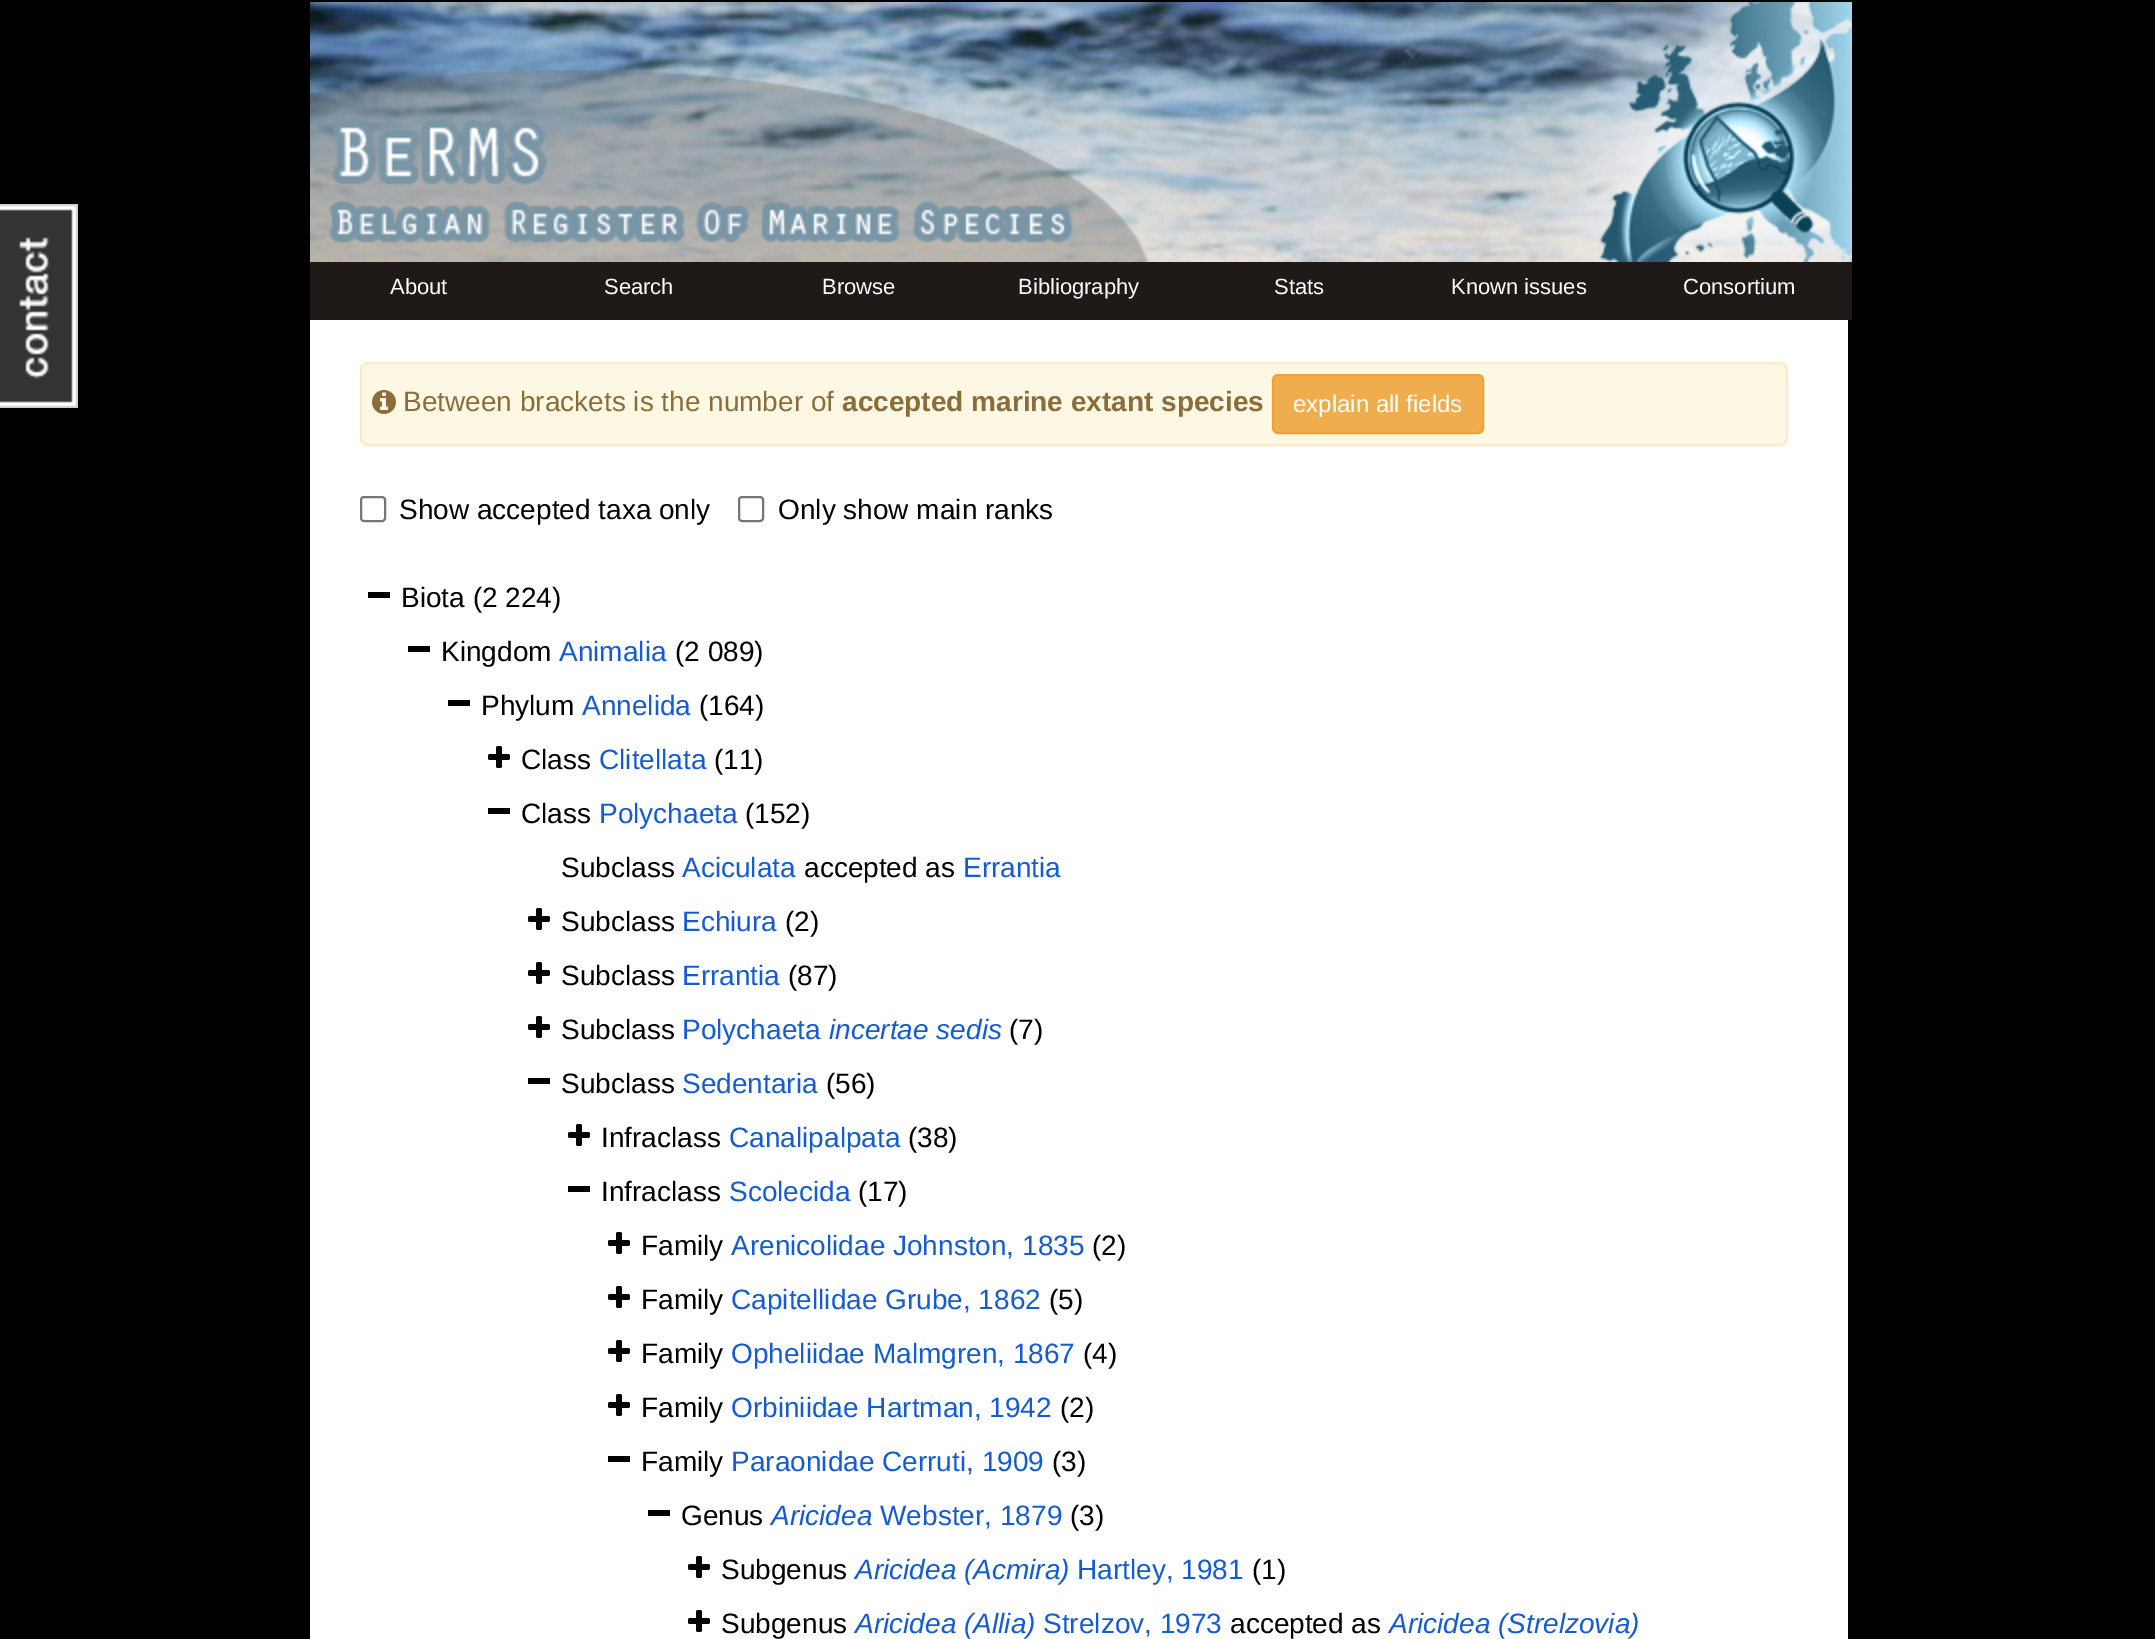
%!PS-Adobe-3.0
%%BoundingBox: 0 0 2155 1639
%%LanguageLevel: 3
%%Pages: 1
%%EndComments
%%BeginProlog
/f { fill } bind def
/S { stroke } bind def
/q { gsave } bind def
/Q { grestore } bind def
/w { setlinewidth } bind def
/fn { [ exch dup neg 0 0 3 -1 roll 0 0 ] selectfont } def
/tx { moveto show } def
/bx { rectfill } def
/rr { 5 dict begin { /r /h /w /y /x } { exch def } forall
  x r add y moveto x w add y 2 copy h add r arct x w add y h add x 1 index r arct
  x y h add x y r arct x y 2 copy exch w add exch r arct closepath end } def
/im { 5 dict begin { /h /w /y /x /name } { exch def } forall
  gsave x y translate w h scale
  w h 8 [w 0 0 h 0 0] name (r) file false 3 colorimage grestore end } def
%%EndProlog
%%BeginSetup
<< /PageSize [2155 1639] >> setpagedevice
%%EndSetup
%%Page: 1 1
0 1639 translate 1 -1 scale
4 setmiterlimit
0 setgray
0 0 2155 1639 bx
(image0.raw) 0 204 78 204 im
1 setgray
310 320 1538 1319 bx
(image1.raw) 310 2 1542 260 im
0.122 0.102 0.09 setrgbcolor
310 262 1542 58 bx
/LiberationSans-Regular 22 fn
1 setgray
(About) 390 294 tx
(Search) 604 294 tx
(Browse) 822 294 tx
(Bibliography) 1018 294 tx
(Stats) 1274 294 tx
(Known issues) 1451 294 tx
(Consortium) 1683 294 tx
0.988 0.973 0.89 setrgbcolor
361 363 1426 82 7 rr q f Q
0.98 0.922 0.8 setrgbcolor
2 w
S
(image2.raw) 372 390 24 24 im
/LiberationSans-Regular 28 fn
0.541 0.427 0.231 setrgbcolor
(Between brackets is the number of) 403 411 tx
/LiberationSans-Bold 28 fn
(accepted marine extant species) 842 411 tx
0.941 0.678 0.306 setrgbcolor
1273 375 210 58 5 rr q f Q
0.933 0.635 0.212 setrgbcolor
S
/LiberationSans-Regular 24 fn
1 setgray
(explain all fields) 1293 412 tx
0.463 setgray
361 497 24 24 3 rr S
/LiberationSans-Regular 28 fn
0 setgray
(Show accepted taxa only) 399 519 tx
0.463 setgray
739 497 24 24 3 rr S
0 setgray
(Only show main ranks) 778 519 tx
368 592 22 6 bx
(Biota \(2 224\)) 401 607 tx
408 646 22 6 bx
(Kingdom) 441 661 tx
0.075 0.361 0.82 setrgbcolor
(Animalia) 559 661 tx
0 setgray
(\(2 089\)) 675 661 tx
448 700 22 6 bx
(Phylum) 481 715 tx
0.075 0.361 0.82 setrgbcolor
(Annelida) 582 715 tx
0 setgray
(\(164\)) 699 715 tx
(image3.raw) 488 746 22 22 im
(Class) 521 769 tx
0.075 0.361 0.82 setrgbcolor
(Clitellata) 599 769 tx
0 setgray
(\(11\)) 714 769 tx
488 808 22 6 bx
(Class) 521 823 tx
0.075 0.361 0.82 setrgbcolor
(Polychaeta) 599 823 tx
0 setgray
(\(152\)) 745 823 tx
(Subclass) 561 877 tx
0.075 0.361 0.82 setrgbcolor
(Aciculata) 682 877 tx
0 setgray
(accepted as) 804 877 tx
0.075 0.361 0.82 setrgbcolor
(Errantia) 963 877 tx
(image3.raw) 528 908 22 22 im
0 setgray
(Subclass) 561 931 tx
0.075 0.361 0.82 setrgbcolor
(Echiura) 682 931 tx
0 setgray
(\(2\)) 785 931 tx
(image3.raw) 528 962 22 22 im
(Subclass) 561 985 tx
0.075 0.361 0.82 setrgbcolor
(Errantia) 682 985 tx
0 setgray
(\(87\)) 788 985 tx
(image3.raw) 528 1016 22 22 im
(Subclass) 561 1039 tx
0.075 0.361 0.82 setrgbcolor
(Polychaeta) 682 1039 tx
/LiberationSans-Italic 28 fn
(incertae sedis) 829 1039 tx
/LiberationSans-Regular 28 fn
0 setgray
(\(7\)) 1009 1039 tx
528 1078 22 6 bx
(Subclass) 561 1093 tx
0.075 0.361 0.82 setrgbcolor
(Sedentaria) 682 1093 tx
0 setgray
(\(56\)) 826 1093 tx
(image3.raw) 568 1124 22 22 im
(Infraclass) 601 1147 tx
0.075 0.361 0.82 setrgbcolor
(Canalipalpata) 729 1147 tx
0 setgray
(\(38\)) 908 1147 tx
568 1186 22 6 bx
(Infraclass) 601 1201 tx
0.075 0.361 0.82 setrgbcolor
(Scolecida) 729 1201 tx
0 setgray
(\(17\)) 858 1201 tx
(image3.raw) 608 1232 22 22 im
(Family) 641 1255 tx
0.075 0.361 0.82 setrgbcolor
(Arenicolidae Johnston, 1835) 731 1255 tx
0 setgray
(\(2\)) 1092 1255 tx
(image3.raw) 608 1286 22 22 im
(Family) 641 1309 tx
0.075 0.361 0.82 setrgbcolor
(Capitellidae Grube, 1862) 731 1309 tx
0 setgray
(\(5\)) 1049 1309 tx
(image3.raw) 608 1340 22 22 im
(Family) 641 1363 tx
0.075 0.361 0.82 setrgbcolor
(Opheliidae Malmgren, 1867) 731 1363 tx
0 setgray
(\(4\)) 1083 1363 tx
(image3.raw) 608 1394 22 22 im
(Family) 641 1417 tx
0.075 0.361 0.82 setrgbcolor
(Orbiniidae Hartman, 1942) 731 1417 tx
0 setgray
(\(2\)) 1060 1417 tx
608 1456 22 6 bx
(Family) 641 1471 tx
0.075 0.361 0.82 setrgbcolor
(Paraonidae Cerruti, 1909) 731 1471 tx
0 setgray
(\(3\)) 1052 1471 tx
648 1510 22 6 bx
(Genus) 681 1525 tx
/LiberationSans-Italic 28 fn
0.075 0.361 0.82 setrgbcolor
(Aricidea) 771 1525 tx
/LiberationSans-Regular 28 fn
(Webster, 1879) 880 1525 tx
0 setgray
(\(3\)) 1070 1525 tx
(image3.raw) 688 1556 22 22 im
(Subgenus) 721 1579 tx
/LiberationSans-Italic 28 fn
0.075 0.361 0.82 setrgbcolor
(Aricidea \(Acmira\)) 855 1579 tx
/LiberationSans-Regular 28 fn
(Hartley, 1981) 1077 1579 tx
0 setgray
(\(1\)) 1252 1579 tx
(image3.raw) 688 1610 22 22 im
(Subgenus) 721 1633 tx
/LiberationSans-Italic 28 fn
0.075 0.361 0.82 setrgbcolor
(Aricidea \(Allia\)) 855 1633 tx
/LiberationSans-Regular 28 fn
(Strelzov, 1973) 1043 1633 tx
0 setgray
(accepted as) 1230 1633 tx
/LiberationSans-Italic 28 fn
0.075 0.361 0.82 setrgbcolor
(Aricidea \(Strelzovia\)) 1389 1633 tx
showpage
%%EOF
